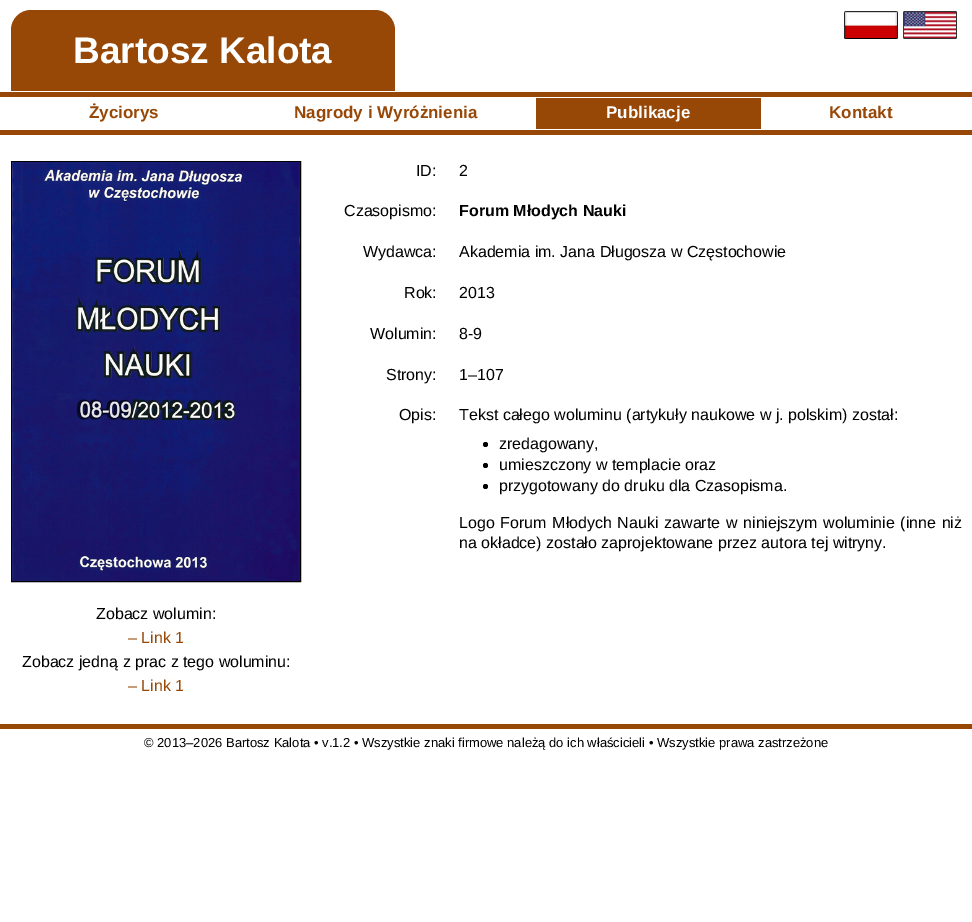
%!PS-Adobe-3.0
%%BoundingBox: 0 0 972 922
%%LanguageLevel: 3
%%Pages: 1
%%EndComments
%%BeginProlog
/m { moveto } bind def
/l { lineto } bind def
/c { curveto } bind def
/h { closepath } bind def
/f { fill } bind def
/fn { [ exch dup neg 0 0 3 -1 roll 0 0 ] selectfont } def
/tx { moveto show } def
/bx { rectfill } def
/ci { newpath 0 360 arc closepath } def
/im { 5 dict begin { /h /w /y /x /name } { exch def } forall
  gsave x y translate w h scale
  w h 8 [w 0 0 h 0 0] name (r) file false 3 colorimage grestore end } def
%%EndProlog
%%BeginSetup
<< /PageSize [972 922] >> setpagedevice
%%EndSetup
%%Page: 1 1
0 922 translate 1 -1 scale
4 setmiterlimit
1 setgray
0 0 972 922 bx
(image0.raw) 844 11 54 28 im
(image1.raw) 903 11 54 28 im
0.592 0.278 0.024 setrgbcolor
31 10 m 375 10 l 386 10 395 19 395 30 c 395 91 l 11 91 l 11 30 l 11 19 20 10 31 10 c h f
/LiberationSans-Bold 37 fn
1 setgray
(Bartosz Kalota) 73 63 tx
0.592 0.278 0.024 setrgbcolor
0 92 972 5 bx
/LiberationSans-Bold 17 fn
(Życiorys) 89 118 tx
(Nagrody i Wyróżnienia) 294 118 tx
536 98 225 31 bx
1 setgray
(Publikacje) 606 118 tx
0.592 0.278 0.024 setrgbcolor
(Kontakt) 829 118 tx
0 130 972 5 bx
/LiberationSans-Regular 16 fn
0 setgray
(ID:) 416 176 tx
(2) 459 176 tx
(Czasopismo:) 344 216 tx
/LiberationSans-Bold 16 fn
(Forum Młodych Nauki) 459 216 tx
/LiberationSans-Regular 16 fn
(Wydawca:) 363 257 tx
(Akademia im. Jana Długosza w Częstochowie) 459 257 tx
(Rok:) 404 298 tx
(2013) 459 298 tx
(Wolumin:) 370 339 tx
(8-9) 459 339 tx
(Strony:) 386 380 tx
(1–107) 459 380 tx
(Opis:) 399 420 tx
(Tekst całego woluminu \(artykuły naukowe w j. polskim\) został:) 459 420 tx
485.5 444.5 2.5 ci f
(zredagowany,) 499 449 tx
485.5 465.5 2.5 ci f
(umieszczony w templacie oraz) 499 470 tx
485.5 486.5 2.5 ci f
(przygotowany do druku dla Czasopisma.) 499 491 tx
459 528 m 1.25 0 32 (Logo Forum Młodych Nauki zawarte w niniejszym woluminie \(inne niż) widthshow
(na okładce\) zostało zaprojektowane przez autora tej witryny.) 459 548 tx
11.5 161.5 289 420 rectstroke
(image2.raw) 12 162 288 419 im
(Zobacz wolumin:) 96 619 tx
0.592 0.278 0.024 setrgbcolor
(– Link 1) 128 643 tx
0 setgray
(Zobacz jedną z prac z tego woluminu:) 22 667 tx
0.592 0.278 0.024 setrgbcolor
(– Link 1) 128 691 tx
0 724 972 5 bx
/LiberationSans-Regular 13 fn
0 setgray
(© 2013–2026 Bartosz Kalota • v.1.2 • Wszystkie znaki firmowe należą do ich właścicieli • Wszystkie prawa zastrzeżone) 144 747 tx
showpage
%%EOF
